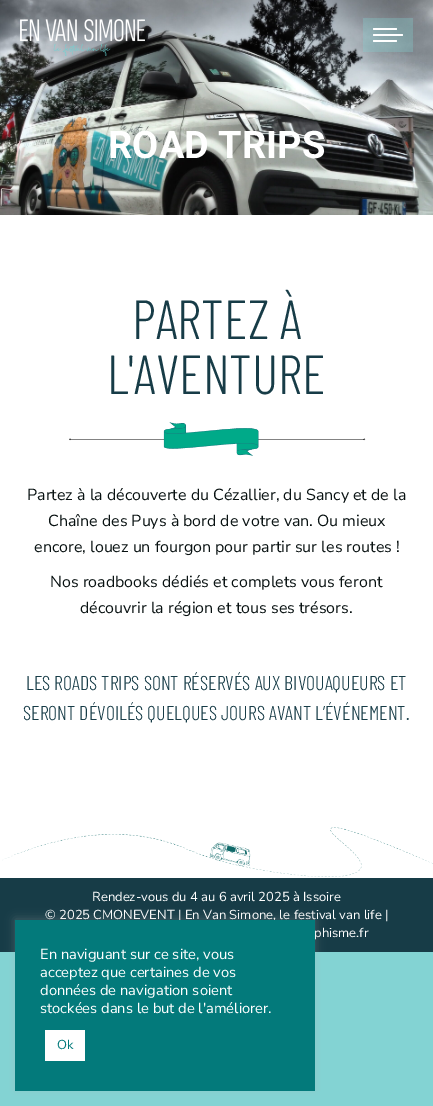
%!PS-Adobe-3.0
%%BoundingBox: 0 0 433 1106
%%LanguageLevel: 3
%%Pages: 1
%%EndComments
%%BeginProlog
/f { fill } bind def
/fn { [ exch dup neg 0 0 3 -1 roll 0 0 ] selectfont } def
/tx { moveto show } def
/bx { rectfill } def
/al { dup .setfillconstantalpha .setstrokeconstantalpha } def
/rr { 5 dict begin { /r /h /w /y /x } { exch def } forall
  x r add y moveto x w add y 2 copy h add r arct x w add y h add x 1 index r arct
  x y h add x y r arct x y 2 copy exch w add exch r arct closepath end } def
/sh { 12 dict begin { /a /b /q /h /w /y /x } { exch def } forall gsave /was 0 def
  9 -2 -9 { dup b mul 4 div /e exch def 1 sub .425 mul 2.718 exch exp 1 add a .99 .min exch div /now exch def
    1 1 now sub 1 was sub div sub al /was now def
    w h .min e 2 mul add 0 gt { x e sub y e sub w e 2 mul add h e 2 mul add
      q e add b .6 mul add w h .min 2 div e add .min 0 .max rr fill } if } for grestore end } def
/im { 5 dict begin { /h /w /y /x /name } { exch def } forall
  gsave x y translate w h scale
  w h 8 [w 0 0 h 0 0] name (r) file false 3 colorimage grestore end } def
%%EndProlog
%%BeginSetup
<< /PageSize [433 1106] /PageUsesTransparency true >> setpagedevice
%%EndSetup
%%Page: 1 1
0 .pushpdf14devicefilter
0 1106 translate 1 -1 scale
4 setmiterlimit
0.514 0.827 0.827 setrgbcolor
0 0 433 1106 bx
1 setgray
0 215 433 663 bx
(image1.raw) 0 0 433 215 im
(image0.raw) 20 19 125 37 im
0.3 al
0.514 0.827 0.827 setrgbcolor
363 18 50 34 bx
1 al
1 setgray
373 28 24 2 1 rr f
373 34 30 2 1 rr f
373 40 24 2 1 rr f
/Roboto-Bold 38 fn
(ROAD TRIPS) 108 158 tx
/BarlowCondensed-Light 55 fn
0.09 0.235 0.278 setrgbcolor
(PARTEZ À) 132 339 tx
(L'AVENTURE) 107 394 tx
(image2.raw) 69 422 297 34 im
/NunitoSans-Regular 16 fn
0.031 0.067 0.067 setrgbcolor
(Partez à la découverte du Cézallier, du Sancy et de la) 27 500 tx
(Chaîne des Puys à bord de votre van. Ou mieux) 48 526 tx
(encore, louez un fourgon pour partir sur les routes !) 34 552 tx
(Nos roadbooks dédiés et complets vous feront) 50 587 tx
(découvrir la région et tous ses trésors.) 80 613 tx
/BarlowCondensed-Light 20 fn
0.09 0.235 0.278 setrgbcolor
(LES ROADS TRIPS SONT RÉSERVÉS AUX BIVOUAQUEURS ET) 26 690 tx
(SERONT DÉVOILÉS QUELQUES JOURS AVANT L’ÉVÉNEMENT.) 23 720 tx
(image3.raw) 2 827 431 50 im
0 878 433 74 bx
/NunitoSans-Regular 13 fn
1 setgray
(Rendez-vous du 4 au 6 avril 2025 à Issoire) 92 901 tx
(© 2025 CMONEVENT | En Van Simone, le festival van life |) 45 919 tx
(phisme.fr) 314 937 tx
0.675 0.671 0.671 setrgbcolor
15 919 300 171 0 5 0.3 sh
0.012 0.478 0.482 setrgbcolor
15 920 300 171 bx
/NunitoSans-Regular 14.7 fn
1 setgray
(En naviguant sur ce site, vous) 40 959 tx
(acceptez que certaines de vos) 40 977 tx
(données de navigation soient) 40 995 tx
(stockées dans le but de l'améliorer.) 40 1013 tx
45 1030 40 31 bx
/NunitoSans-Regular 13 fn
0.012 0.478 0.482 setrgbcolor
(Ok) 57 1049 tx
.poppdf14devicefilter showpage
%%EOF
